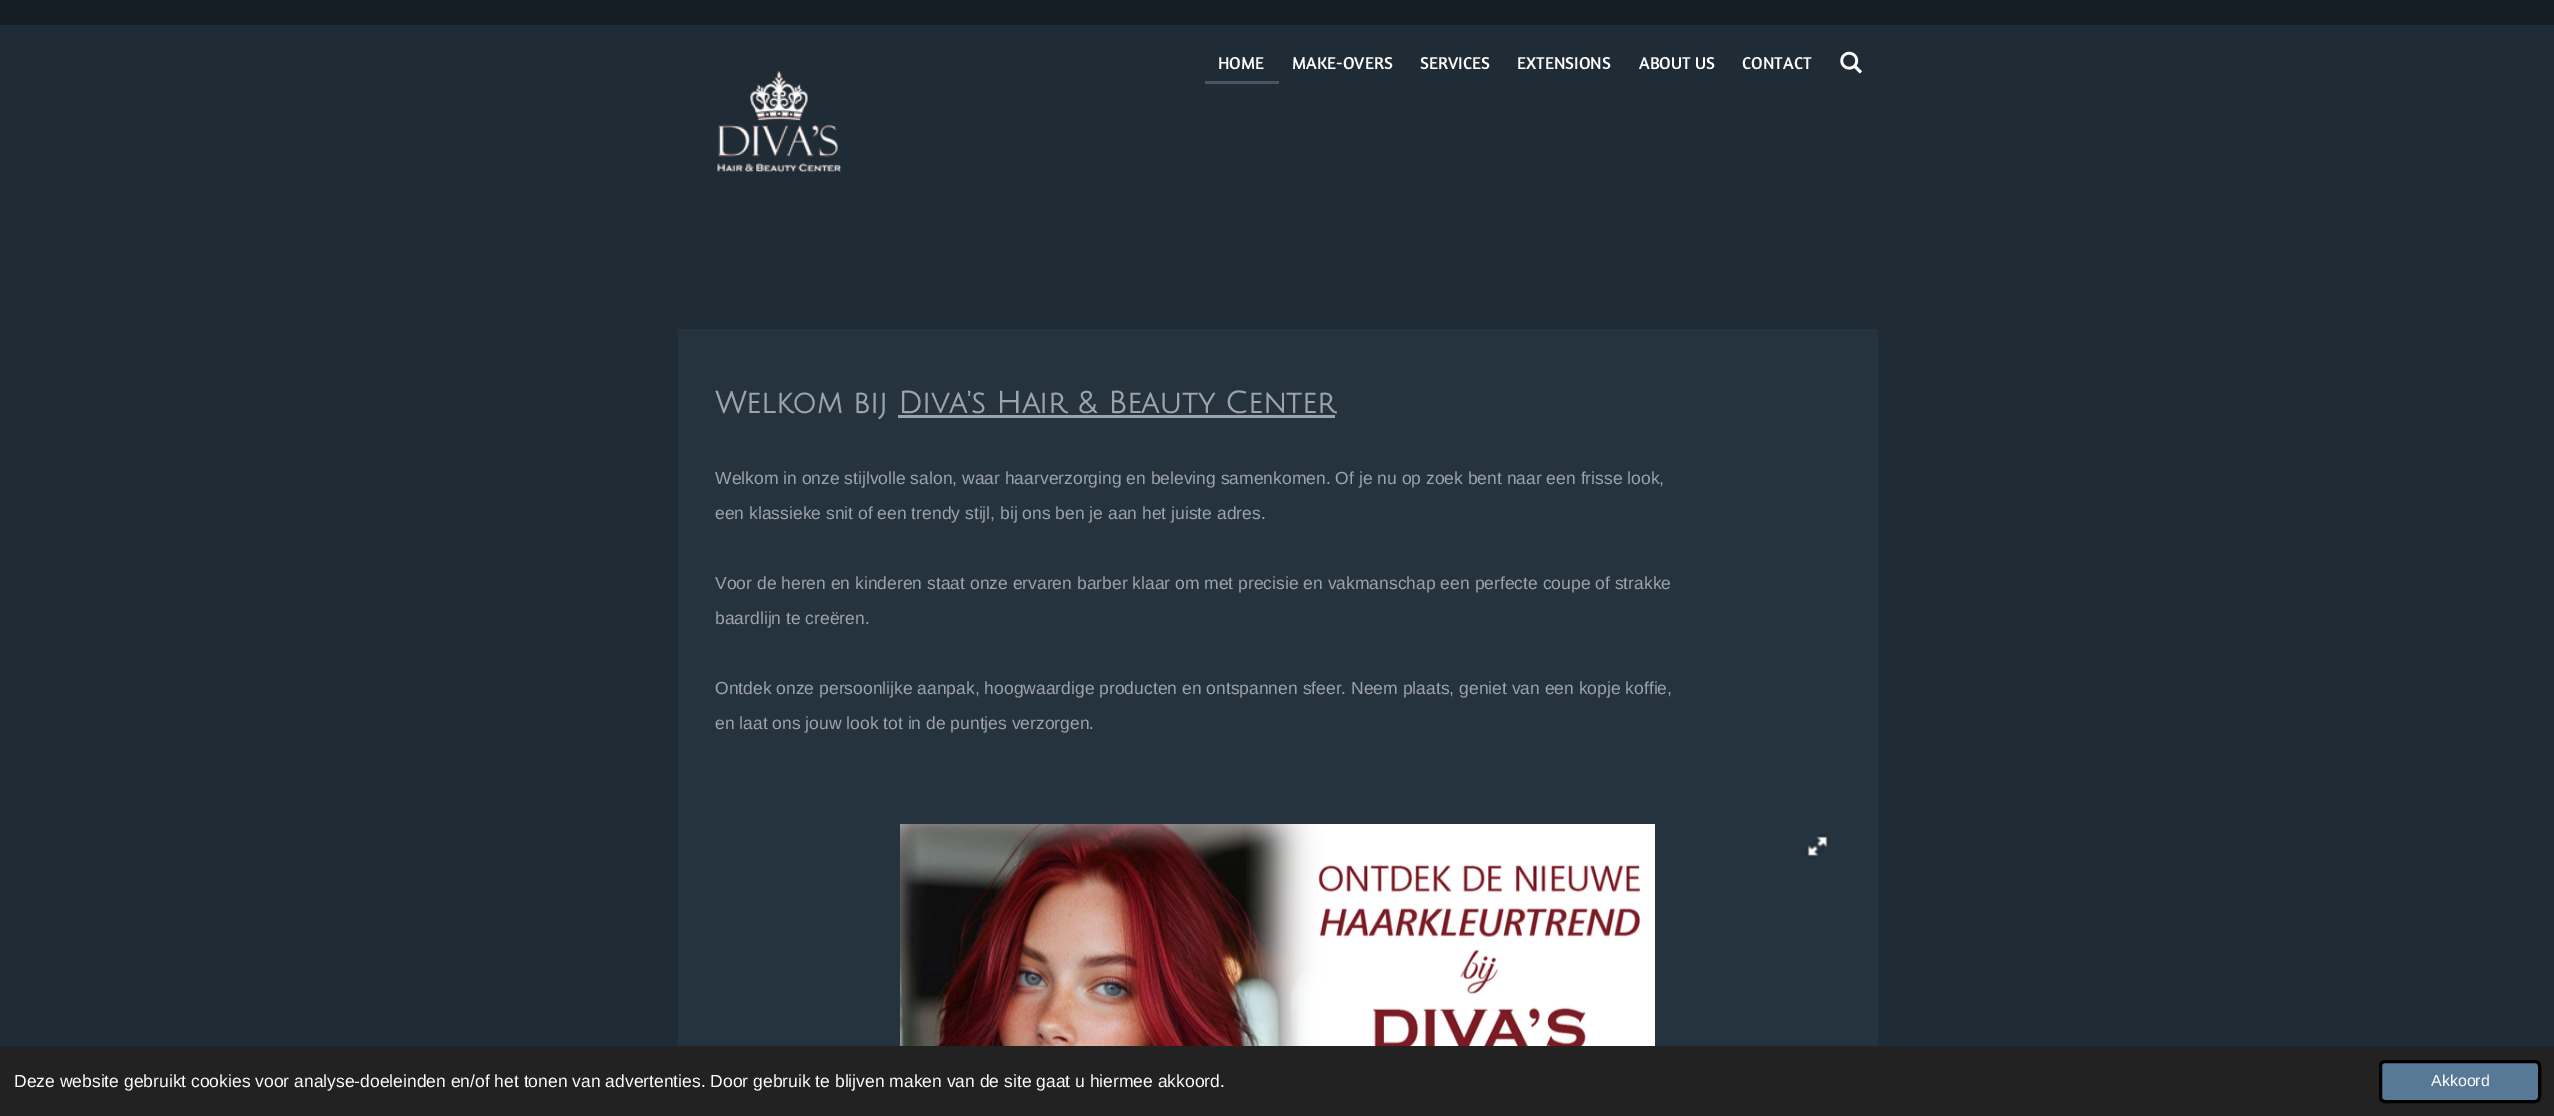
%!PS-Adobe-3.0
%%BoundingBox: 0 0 2554 1116
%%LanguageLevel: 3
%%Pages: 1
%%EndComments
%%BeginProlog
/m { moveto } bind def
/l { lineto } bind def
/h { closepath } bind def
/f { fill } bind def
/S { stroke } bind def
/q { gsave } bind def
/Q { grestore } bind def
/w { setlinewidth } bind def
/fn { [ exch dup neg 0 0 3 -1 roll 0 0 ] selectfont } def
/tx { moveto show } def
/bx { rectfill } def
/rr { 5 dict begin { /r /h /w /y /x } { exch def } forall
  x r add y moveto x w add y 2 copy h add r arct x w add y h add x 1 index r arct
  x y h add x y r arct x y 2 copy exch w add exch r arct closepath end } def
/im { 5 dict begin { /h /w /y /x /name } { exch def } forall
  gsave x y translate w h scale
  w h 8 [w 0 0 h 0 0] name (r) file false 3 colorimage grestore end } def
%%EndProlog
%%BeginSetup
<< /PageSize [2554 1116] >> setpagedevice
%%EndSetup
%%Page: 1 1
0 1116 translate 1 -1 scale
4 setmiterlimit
0.122 0.169 0.208 setrgbcolor
0 0 2554 1116 bx
0.086 0.118 0.145 setrgbcolor
0 0 2554 25 bx
0.298 0.333 0.365 setrgbcolor
1205 81 m 1205 84 l 1279 84 l 1279 46 l 1279 81 l h f
/Amaranth-Regular 17.5 fn
1 setgray
(HOME) 1218 69 tx
(MAKE-OVERS) 1292 69 tx
(SERVICES) 1420 69 tx
(EXTENSIONS) 1517 69 tx
(ABOUT US) 1639 69 tx
(CONTACT) 1742 69 tx
(image0.raw) 1840 51 22 23 im
(image1.raw) 716 71 126 102 im
0.145 0.2 0.247 setrgbcolor
678 329 1200 717 bx
/JuliusSansOne-Bold 30 fn
0.616 0.639 0.659 setrgbcolor
(Welkom bij Diva's Hair & Beauty Center) 715 413 tx
898 415 437 3 bx
/LiberationSans-Regular 17.5 fn
(Welkom in onze stijlvolle salon, waar haarverzorging en beleving samenkomen. Of je nu op zoek bent naar een frisse look,) 715 484 tx
(een klassieke snit of een trendy stijl, bij ons ben je aan het juiste adres.) 715 519 tx
(Voor de heren en kinderen staat onze ervaren barber klaar om met precisie en vakmanschap een perfecte coupe of strakke) 715 589 tx
(baardlijn te creëren.) 715 624 tx
(Ontdek onze persoonlijke aanpak, hoogwaardige producten en ontspannen sfeer. Neem plaats, geniet van een kopje koffie,) 715 694 tx
(en laat ons jouw look tot in de puntjes verzorgen.) 715 729 tx
(image2.raw) 900 824 755 222 im
(image3.raw) 1805 834 25 25 im
0.133 setgray
0 1046 2554 70 bx
1 setgray
(Deze website gebruikt cookies voor analyse-doeleinden en/of het tonen van advertenties. Door gebruik te blijven maken van de site gaat u hiermee akkoord.) 14 1087 tx
0.341 0.475 0.588 setrgbcolor
2380.5 1061.5 159 40 4.5 rr q f Q
0 setgray
3 w
S
/LiberationSans-Regular 16 fn
1 setgray
(Akkoord) 2431 1086 tx
showpage
%%EOF
